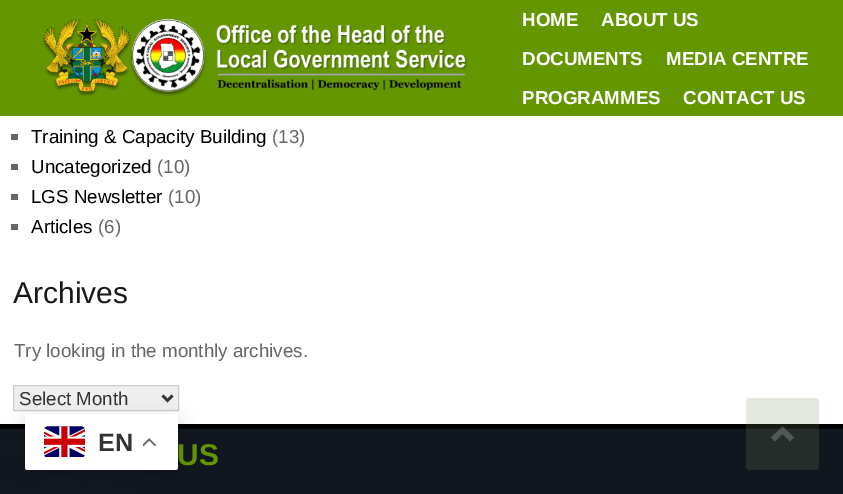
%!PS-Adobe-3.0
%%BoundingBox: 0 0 843 494
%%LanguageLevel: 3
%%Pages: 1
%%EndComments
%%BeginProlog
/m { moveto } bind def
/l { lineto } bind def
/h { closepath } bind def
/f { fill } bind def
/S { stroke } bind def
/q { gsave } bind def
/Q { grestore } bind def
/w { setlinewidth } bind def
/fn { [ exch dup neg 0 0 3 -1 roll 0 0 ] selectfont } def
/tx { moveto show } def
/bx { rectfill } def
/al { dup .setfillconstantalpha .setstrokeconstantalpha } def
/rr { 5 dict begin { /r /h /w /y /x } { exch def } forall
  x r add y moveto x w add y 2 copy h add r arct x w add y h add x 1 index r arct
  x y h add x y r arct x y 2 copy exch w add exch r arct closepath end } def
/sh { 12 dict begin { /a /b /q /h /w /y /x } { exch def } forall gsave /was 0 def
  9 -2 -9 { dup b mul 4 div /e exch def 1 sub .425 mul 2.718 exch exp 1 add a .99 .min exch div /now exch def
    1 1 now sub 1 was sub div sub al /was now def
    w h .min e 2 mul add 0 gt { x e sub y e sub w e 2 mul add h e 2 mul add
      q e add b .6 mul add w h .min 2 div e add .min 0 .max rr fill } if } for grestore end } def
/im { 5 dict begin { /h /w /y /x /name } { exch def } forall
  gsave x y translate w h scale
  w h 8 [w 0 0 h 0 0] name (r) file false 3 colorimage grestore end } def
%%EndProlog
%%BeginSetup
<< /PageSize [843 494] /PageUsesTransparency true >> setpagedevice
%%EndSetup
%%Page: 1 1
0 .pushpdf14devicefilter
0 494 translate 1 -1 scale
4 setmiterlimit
0 setgray
0 0 843 494 bx
0.392 0.588 0 setrgbcolor
0 0 843 116 bx
(image0.raw) 42 18 425 78 im
/LiberationSans-Bold 18.75 fn
1 setgray
(HOME) 522 26 tx
(ABOUT US) 601 26 tx
(DOCUMENTS) 522 65 tx
(MEDIA CENTRE) 666 65 tx
(PROGRAMMES) 522 104 tx
(CONTACT US) 683 104 tx
0 116 843 308 bx
0.4 setgray
11 134 7 6 bx
/LiberationSans-Regular 18.75 fn
0 setgray
(Training & Capacity Building) 31 143 tx
0.4 setgray
(\(13\)) 272 143 tx
11 164 7 6 bx
0 setgray
(Uncategorized) 31 173 tx
0.4 setgray
(\(10\)) 157 173 tx
11 194 7 6 bx
0 setgray
(LGS Newsletter) 31 203 tx
0.4 setgray
(\(10\)) 168 203 tx
11 224 7 6 bx
0 setgray
(Articles) 31 233 tx
0.4 setgray
(\(6\)) 98 233 tx
/LiberationSans-Regular 30 fn
0.098 setgray
(Archives) 13 303 tx
/LiberationSans-Regular 18.75 fn
0.4 setgray
(Try looking in the monthly archives.) 14 357 tx
0.937 setgray
13.5 385.5 m 178.5 385.5 l 178.5 410.5 l 13.5 410.5 l h q f Q
0.8 setgray
S
0.2 setgray
2.5 w
162.5 395.5 m 167.5 400.5 l 172.5 395.5 l S
(Select Month) 19 405 tx
(image1.raw) 0 428 843 66 im
/LiberationSans-Bold 30 fn
0.392 0.588 0 setrgbcolor
(US) 177 465 tx
0 setgray
25 420 153 56 2.5 9.5 0.15 sh
1 setgray
25 414 153 56 2.5 rr f
(image2.raw) 44 426 41 32 im
/LiberationSans-Bold 25 fn
0.2 setgray
(EN) 98 451 tx
(image3.raw) 143 438 13 9 im
0.2 al
0.451 0.549 0.349 setrgbcolor
746 398 73 72 4 rr f
1 setgray
794 437.5 m 782.5 426.5 l 771 437.5 l 775 441.5 l 782.5 434 l 790 441.5 l h f
.poppdf14devicefilter showpage
%%EOF
